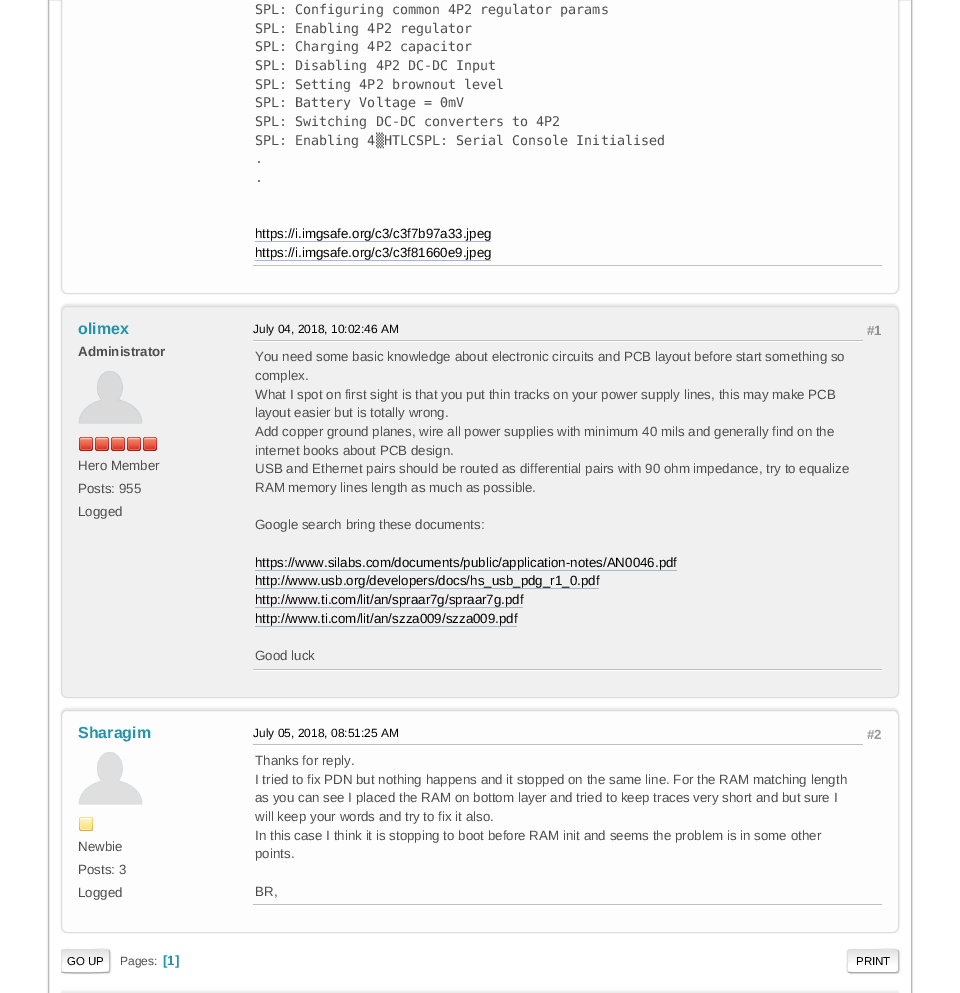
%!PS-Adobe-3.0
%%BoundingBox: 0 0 960 993
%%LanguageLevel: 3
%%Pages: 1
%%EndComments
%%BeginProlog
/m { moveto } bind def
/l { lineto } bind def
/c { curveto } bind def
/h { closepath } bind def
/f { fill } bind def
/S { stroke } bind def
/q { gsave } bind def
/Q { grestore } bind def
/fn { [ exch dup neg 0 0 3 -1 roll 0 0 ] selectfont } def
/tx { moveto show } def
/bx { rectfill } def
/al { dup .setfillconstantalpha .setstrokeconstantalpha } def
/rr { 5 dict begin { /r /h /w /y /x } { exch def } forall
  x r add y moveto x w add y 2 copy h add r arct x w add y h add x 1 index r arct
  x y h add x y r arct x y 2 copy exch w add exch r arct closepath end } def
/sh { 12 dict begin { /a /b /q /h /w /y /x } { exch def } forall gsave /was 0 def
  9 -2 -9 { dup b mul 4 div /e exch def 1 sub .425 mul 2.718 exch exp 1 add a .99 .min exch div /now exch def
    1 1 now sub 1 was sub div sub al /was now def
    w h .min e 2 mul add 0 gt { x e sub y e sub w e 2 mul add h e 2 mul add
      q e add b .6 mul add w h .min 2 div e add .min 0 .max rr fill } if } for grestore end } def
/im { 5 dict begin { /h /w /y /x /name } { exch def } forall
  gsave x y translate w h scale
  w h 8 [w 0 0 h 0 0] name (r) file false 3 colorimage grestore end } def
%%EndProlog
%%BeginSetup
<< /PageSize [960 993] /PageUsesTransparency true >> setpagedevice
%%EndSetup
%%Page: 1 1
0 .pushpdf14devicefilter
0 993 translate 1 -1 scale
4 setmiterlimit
1 setgray
0 0 960 993 bx
q
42 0 m 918 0 l 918 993 l 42 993 l h 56 -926 m 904 -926 l 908.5 -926 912 -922.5 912 -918 c 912 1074 l 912 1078.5 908.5 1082 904 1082 c 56 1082 l 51.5 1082 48 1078.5 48 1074 c 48 -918 l 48 -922.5 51.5 -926 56 -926 c h eoclip newpath
0 setgray
48 -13 864 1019 8 1.5 0.14 sh
Q
0.722 setgray
48.5 -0.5 863 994 rectstroke
0 setgray
61 -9 838 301 6 1 0.1 sh
0.992 setgray
61.5 -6.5 837 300 5.5 rr q f Q
0.867 setgray
S
/DejaVuSansMono-Regular 13.35 fn
0.302 setgray
(SPL: Configuring common 4P2 regulator params) 255 14 tx
(SPL: Enabling 4P2 regulator) 255 33 tx
(SPL: Charging 4P2 capacitor) 255 51 tx
(SPL: Disabling 4P2 DC-DC Input) 255 70 tx
(SPL: Setting 4P2 brownout level) 255 89 tx
(SPL: Battery Voltage = 0mV) 255 107 tx
(SPL: Switching DC-DC converters to 4P2) 255 126 tx
(SPL: Enabling 4▒HTLCSPL: Serial Console Initialised) 255 145 tx
(.) 255 163 tx
(.) 255 182 tx
/LiberationSans-Regular 13.35 fn
0 setgray
(https://i.imgsafe.org/c3/c3f7b97a33.jpeg) 255 238 tx
0.659 0.714 0.812 setrgbcolor
255 241 236 1 bx
0 setgray
(https://i.imgsafe.org/c3/c3f81660e9.jpeg) 255 257 tx
0.659 0.714 0.812 setrgbcolor
255 260 236 1 bx
0.749 setgray
253 265 629 1 bx
0 setgray
61 304 838 392 6 1 0.1 sh
0.941 setgray
61.5 306.5 837 391 5.5 rr q f Q
0.867 setgray
S
/LiberationSans-Bold 16 fn
0.137 0.576 0.663 setrgbcolor
(olimex) 78 334 tx
/LiberationSans-Bold 13.35 fn
0.302 setgray
(Administrator) 78 356 tx
(image0.raw) 78 371 65 53 im
(image1.raw) 79 437 14 14 im
(image1.raw) 95 437 14 14 im
(image1.raw) 111 437 14 14 im
(image1.raw) 127 437 14 14 im
(image1.raw) 143 437 14 14 im
/LiberationSans-Regular 13.35 fn
(Hero Member) 78 470 tx
(Posts: 955) 78 493 tx
(Logged) 78 516 tx
/LiberationSans-Regular 12 fn
0 setgray
(July 04, 2018, 10:02:46 AM) 253 333 tx
/LiberationSans-Bold 13.35 fn
0.565 setgray
(#1) 867 335 tx
1 setgray
253 341 610 1 bx
0.749 setgray
253 340 610 1 bx
/LiberationSans-Regular 13.35 fn
0.302 setgray
(You need some basic knowledge about electronic circuits and PCB layout before start something so) 255 361 tx
(complex.) 255 380 tx
(What I spot on first sight is that you put thin tracks on your power supply lines, this may make PCB) 255 399 tx
(layout easier but is totally wrong.) 255 417 tx
(Add copper ground planes, wire all power supplies with minimum 40 mils and generally find on the) 255 436 tx
(internet books about PCB design.) 255 455 tx
(USB and Ethernet pairs should be routed as differential pairs with 90 ohm impedance, try to equalize) 255 473 tx
(RAM memory lines length as much as possible.) 255 492 tx
(Google search bring these documents:) 255 529 tx
0 setgray
(https://www.silabs.com/documents/public/application-notes/AN0046.pdf) 255 567 tx
0.659 0.714 0.812 setrgbcolor
255 570 422 1 bx
0 setgray
(http://www.usb.org/developers/docs/hs_usb_pdg_r1_0.pdf) 255 585 tx
0.659 0.714 0.812 setrgbcolor
255 588 344 1 bx
0 setgray
(http://www.ti.com/lit/an/spraar7g/spraar7g.pdf) 255 604 tx
0.659 0.714 0.812 setrgbcolor
255 607 268 1 bx
0 setgray
(http://www.ti.com/lit/an/szza009/szza009.pdf) 255 623 tx
0.659 0.714 0.812 setrgbcolor
255 626 262 1 bx
0.302 setgray
(Good luck) 255 660 tx
1 setgray
253 670 629 1 bx
0.749 setgray
253 669 629 1 bx
0 setgray
61 708 838 223 6 1 0.1 sh
0.992 setgray
61.5 710.5 837 222 5.5 rr q f Q
0.867 setgray
S
/LiberationSans-Bold 16 fn
0.137 0.576 0.663 setrgbcolor
(Sharagim) 78 738 tx
(image2.raw) 78 752 65 53 im
(image3.raw) 79 817 14 14 im
/LiberationSans-Regular 13.35 fn
0.302 setgray
(Newbie) 78 851 tx
(Posts: 3) 78 874 tx
(Logged) 78 897 tx
/LiberationSans-Regular 12 fn
0 setgray
(July 05, 2018, 08:51:25 AM) 253 737 tx
/LiberationSans-Bold 13.35 fn
0.596 setgray
(#2) 867 739 tx
0.749 setgray
253 744 610 1 bx
/LiberationSans-Regular 13.35 fn
0.302 setgray
(Thanks for reply.) 255 765 tx
(I tried to fix PDN but nothing happens and it stopped on the same line. For the RAM matching length) 255 784 tx
(as you can see I placed the RAM on bottom layer and tried to keep traces very short and but sure I) 255 802 tx
(will keep your words and try to fix it also.) 255 821 tx
(In this case I think it is stopping to boot before RAM init and seems the problem is in some other) 255 840 tx
(points.) 255 858 tx
(BR,) 255 896 tx
0.749 setgray
253 904 629 1 bx
0 setgray
62 950 49 24 3 0.5 0.1 sh
1 setgray
61 949 49 24 3 rr f
q
61 949 49 24 3 rr clip newpath
q 61 950 m 110 950 l 110 972 l 61 972 l h clip newpath
<< /ShadingType 2 /ColorSpace /DeviceRGB /Coords [86 950 86 972] /Extend [true true] /Function << /FunctionType 3 /Domain [0 1] /Functions [<< /FunctionType 2 /Domain [0 1] /C0 [0.886 0.886 0.886] /C1 [1 1 1] /N 1 >> << /FunctionType 2 /Domain [0 1] /C0 [1 1 1] /C1 [1 1 1] /N 1 >>] /Bounds [0.7] /Encode [0 1 0 1] >> >> shfill Q
q 61 972 m 110 972 l 110 973 l 61 973 l h clip newpath
<< /ShadingType 2 /ColorSpace /DeviceRGB /Coords [86 972 86 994] /Extend [true true] /Function << /FunctionType 3 /Domain [0 1] /Functions [<< /FunctionType 2 /Domain [0 1] /C0 [0.886 0.886 0.886] /C1 [1 1 1] /N 1 >> << /FunctionType 2 /Domain [0 1] /C0 [1 1 1] /C1 [1 1 1] /N 1 >>] /Bounds [0.7] /Encode [0 1 0 1] >> >> shfill Q
Q
0.733 setgray
109 950 m 109 950.5 109.5 951.5 109.5 952 c 109.5 970 l 109.5 970.5 109 971.5 109 972 c S
0.667 setgray
109 972 m 107.5 973 68 973 64 972.5 c 62 972 l S
q
61 937 838 48 rectclip
0.867 setgray
62 972 m 60.5 970 61.5 963 61.5 961 c 61.5 948.5 59 949.5 71 949.5 c 92.5 949.5 l 95 949.5 107 948.5 109 950 c S
Q
/LiberationSans-Regular 11.5 fn
0 setgray
(GO UP) 67 965 tx
/LiberationSans-Regular 12 fn
0.302 setgray
(Pages:) 120 965 tx
/LiberationSans-Bold 13.35 fn
0.137 0.576 0.663 setrgbcolor
([1]) 163 965 tx
0 setgray
848 950 52 24 3 0.5 0.1 sh
1 setgray
847 949 52 24 3 rr f
q
847 949 52 24 3 rr clip newpath
q 847 950 m 899 950 l 899 972 l 847 972 l h clip newpath
<< /ShadingType 2 /ColorSpace /DeviceRGB /Coords [873 950 873 972] /Extend [true true] /Function << /FunctionType 3 /Domain [0 1] /Functions [<< /FunctionType 2 /Domain [0 1] /C0 [0.886 0.886 0.886] /C1 [1 1 1] /N 1 >> << /FunctionType 2 /Domain [0 1] /C0 [1 1 1] /C1 [1 1 1] /N 1 >>] /Bounds [0.7] /Encode [0 1 0 1] >> >> shfill Q
Q
0.733 setgray
898 950 m 898 950.5 898.5 951.5 898.5 952 c 898.5 970 l 898.5 970.5 898 971.5 898 972 c S
0.667 setgray
898 972 m 896 972.5 l 850 972.5 l 848 972 l S
0.867 setgray
848 972 m 846.5 970 847.5 963 847.5 961 c 847.5 948.5 845.5 949.5 857.5 949.5 c 873 949.5 l 876.5 949.5 895.5 948.5 897.5 950 c 898 950 l S
/LiberationSans-Regular 11.5 fn
0 setgray
(PRINT) 856 965 tx
61 991 838 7 2 1 0.08 sh
.poppdf14devicefilter showpage
%%EOF
